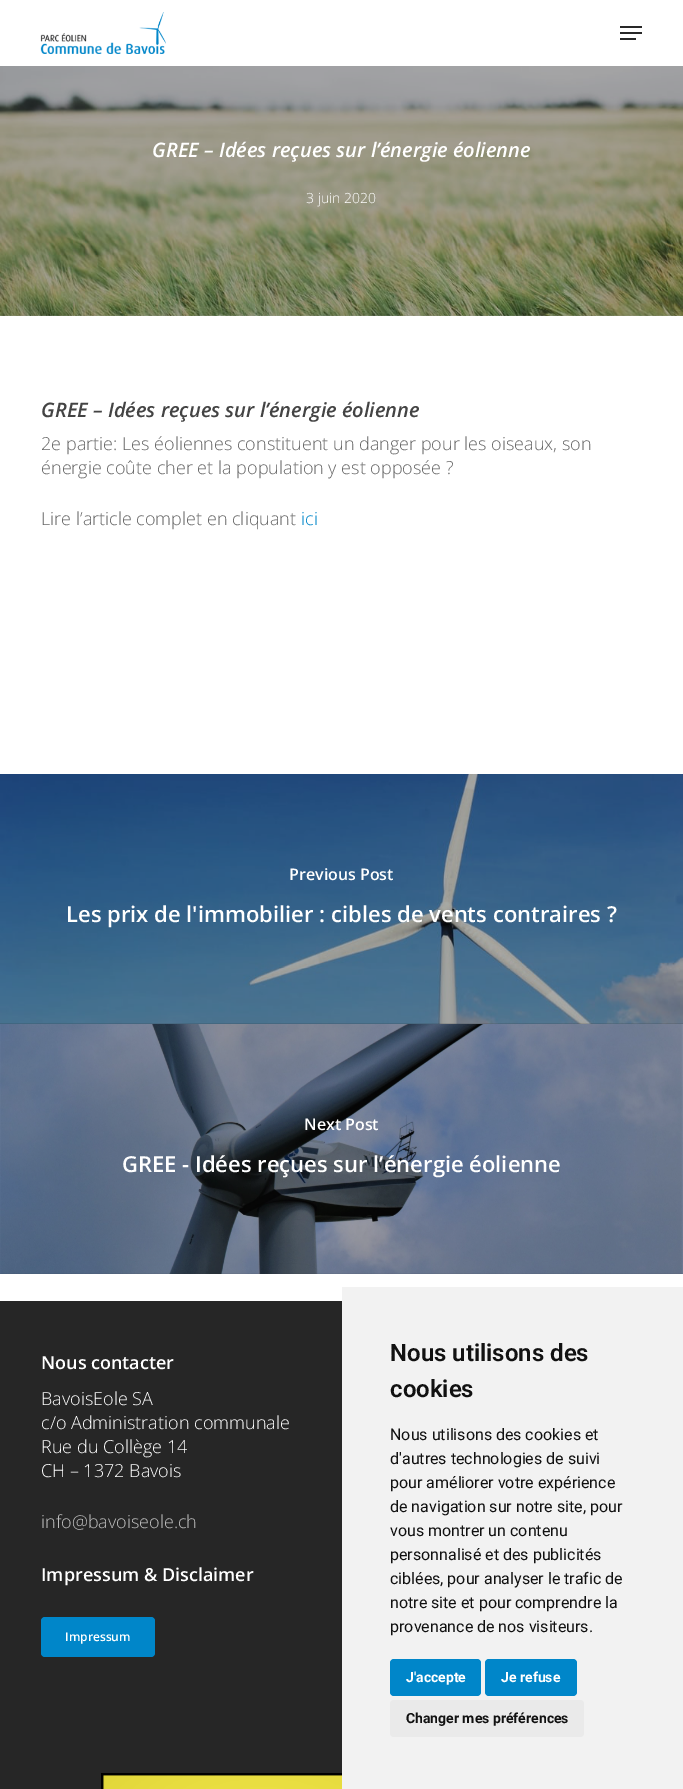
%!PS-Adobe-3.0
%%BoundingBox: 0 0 683 1789
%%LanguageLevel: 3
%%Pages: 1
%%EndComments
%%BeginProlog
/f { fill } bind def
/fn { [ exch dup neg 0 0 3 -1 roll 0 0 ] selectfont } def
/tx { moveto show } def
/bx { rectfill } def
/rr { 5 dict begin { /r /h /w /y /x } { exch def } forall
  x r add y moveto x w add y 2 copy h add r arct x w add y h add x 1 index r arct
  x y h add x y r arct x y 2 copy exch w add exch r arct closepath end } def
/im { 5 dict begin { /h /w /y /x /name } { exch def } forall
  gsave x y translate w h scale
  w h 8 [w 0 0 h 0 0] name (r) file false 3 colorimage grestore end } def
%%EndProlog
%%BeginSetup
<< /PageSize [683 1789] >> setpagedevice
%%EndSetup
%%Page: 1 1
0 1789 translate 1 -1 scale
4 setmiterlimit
1 setgray
0 0 683 1789 bx
(image0.raw) 40 12 126 42 im
0.157 setgray
620 26 22 2 bx
620 38 16 2 bx
620 32 22 2 bx
(image1.raw) 0 66 683 250 im
/OpenSans-SemiBoldItalic 20 fn
1 setgray
(GREE – Idées reçues sur l’énergie éolienne) 152 157 tx
/OpenSans-Light 14 fn
(3 juin 2020) 306 203 tx
/OpenSans-SemiBoldItalic 20 fn
0.267 setgray
(GREE – Idées reçues sur l’énergie éolienne) 41 417 tx
/OpenSans-Light 18 fn
0.404 setgray
(2e partie: Les éoliennes constituent un danger pour les oiseaux, son) 41 450 tx
(énergie coûte cher et la population y est opposée ?) 41 474 tx
(Lire l’article complet en cliquant) 41 525 tx
0 0.525 0.788 setrgbcolor
(ici) 301 525 tx
(image2.raw) 0 774 683 250 im
/OpenSans-SemiBold 16 fn
1 setgray
(Previous Post) 289 880 tx
/OpenSans-SemiBold 22 fn
(Les prix de l'immobilier : cibles de vents contraires ?) 66 922 tx
(image3.raw) 0 1024 683 250 im
/OpenSans-SemiBold 16 fn
(Next Post) 304 1130 tx
/OpenSans-SemiBold 22 fn
(GREE - Idées reçues sur l’énergie éolienne) 122 1172 tx
0.149 setgray
0 1301 342 488 bx
/OpenSans-SemiBold 18 fn
1 setgray
(Nous contacter) 41 1369 tx
/OpenSans-Light 18 fn
(BavoisEole SA) 41 1405 tx
(c/o Administration communale) 41 1429 tx
(Rue du Collège 14) 41 1453 tx
(CH – 1372 Bavois) 41 1477 tx
0.745 setgray
(info@bavoiseole.ch) 41 1528 tx
/OpenSans-SemiBold 18 fn
1 setgray
(Impressum & Disclaimer) 41 1581 tx
0 0.525 0.788 setrgbcolor
41 1617 114 40 4 rr f
/OpenSans-SemiBold 12 fn
1 setgray
(Impressum) 65 1641 tx
(image4.raw) 101 1773 241 16 im
0.949 setgray
342 1287 341 502 bx
/Roboto-SemiBold 24 fn
0.067 setgray
(Nous utilisons des) 390 1361 tx
(cookies) 390 1397 tx
/Roboto-Regular 16 fn
(Nous utilisons des cookies et) 390 1440 tx
(d'autres technologies de suivi) 390 1464 tx
(pour améliorer votre expérience) 390 1488 tx
(de navigation sur notre site, pour) 390 1512 tx
(vous montrer un contenu) 390 1536 tx
(personnalisé et des publicités) 390 1560 tx
(ciblées, pour analyser le trafic de) 390 1584 tx
(notre site et pour comprendre la) 390 1608 tx
(provenance de nos visiteurs.) 390 1632 tx
0 0.525 0.788 setrgbcolor
390 1659 91 37 4 rr f
/Roboto-Bold 14 fn
1 setgray
(J'accepte) 406 1682 tx
0 0.525 0.788 setrgbcolor
485 1659 92 37 4 rr f
1 setgray
(Je refuse) 501 1682 tx
0.918 setgray
390 1700 194 37 4 rr f
0.067 setgray
(Changer mes préférences) 406 1723 tx
showpage
%%EOF
